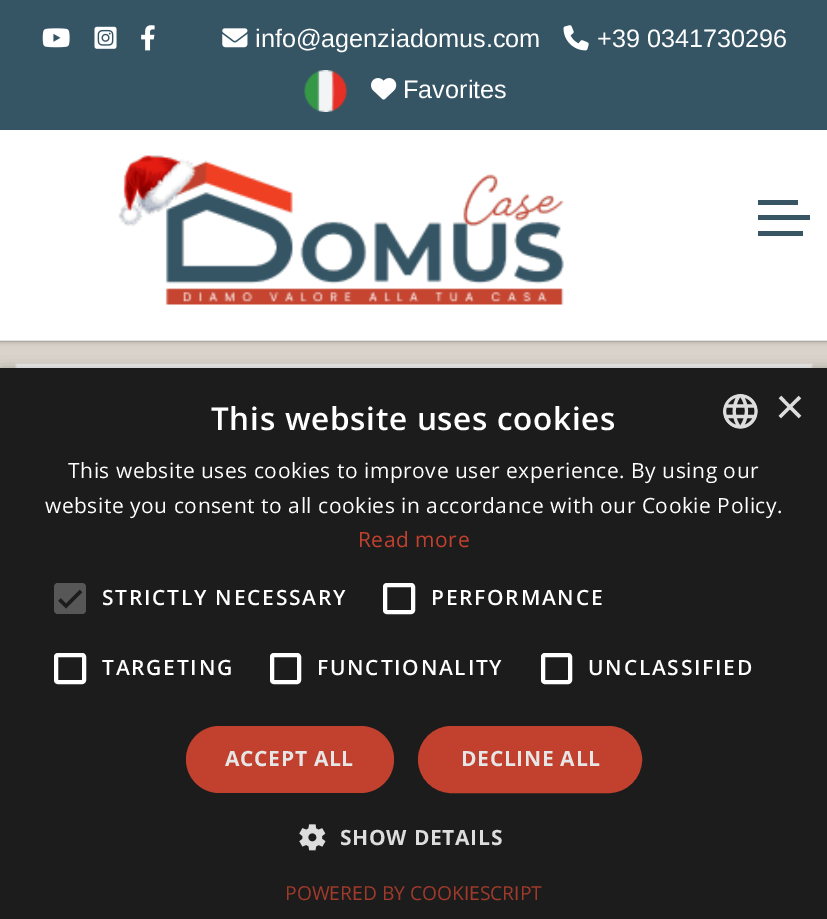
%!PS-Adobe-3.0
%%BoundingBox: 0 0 827 919
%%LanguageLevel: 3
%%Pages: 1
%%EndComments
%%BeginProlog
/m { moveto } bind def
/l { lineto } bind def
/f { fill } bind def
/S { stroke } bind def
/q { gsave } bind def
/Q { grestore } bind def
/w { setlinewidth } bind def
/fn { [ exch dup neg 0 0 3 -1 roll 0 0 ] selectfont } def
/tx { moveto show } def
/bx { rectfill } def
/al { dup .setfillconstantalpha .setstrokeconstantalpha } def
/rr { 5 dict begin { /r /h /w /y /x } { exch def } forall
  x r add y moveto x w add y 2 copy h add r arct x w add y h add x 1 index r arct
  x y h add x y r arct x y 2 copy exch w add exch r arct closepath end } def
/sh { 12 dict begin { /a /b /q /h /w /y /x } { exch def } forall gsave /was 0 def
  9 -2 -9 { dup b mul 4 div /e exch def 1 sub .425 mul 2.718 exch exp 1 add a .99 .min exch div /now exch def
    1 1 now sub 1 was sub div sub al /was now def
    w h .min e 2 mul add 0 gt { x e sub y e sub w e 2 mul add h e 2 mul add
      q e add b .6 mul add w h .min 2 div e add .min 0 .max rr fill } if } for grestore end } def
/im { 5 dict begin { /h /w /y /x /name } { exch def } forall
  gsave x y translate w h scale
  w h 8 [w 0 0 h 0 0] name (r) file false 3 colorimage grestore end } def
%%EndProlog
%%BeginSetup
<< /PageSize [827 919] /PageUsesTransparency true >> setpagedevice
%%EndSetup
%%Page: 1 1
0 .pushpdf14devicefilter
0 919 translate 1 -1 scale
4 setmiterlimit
0.855 0.827 0.796 setrgbcolor
0 0 827 919 bx
0 setgray
0 2 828 341 0 2 0.15 sh
1 setgray
0 130 827 211 bx
0.1 al
0 setgray
0 340 827 2 bx
1 al
0.208 0.333 0.396 setrgbcolor
0 0 827 130 bx
(image0.raw) 42 28 28 20 im
(image1.raw) 94 26 23 23 im
(image2.raw) 141 25 14 26 im
(image3.raw) 222 28 26 20 im
/LiberationSans-Regular 25.25 fn
1 setgray
(info@agenziadomus.com) 255 47 tx
(image4.raw) 563 25 26 26 im
(+39 0341730296) 597 47 tx
(image5.raw) 304 70 43 42 im
(image6.raw) 371 78 26 22 im
(Favorites) 403 98 tx
(image7.raw) 118 155 446 150 im
0.216 0.333 0.388 setrgbcolor
758 200 40 5 bx
758 215 52 5 bx
758 231 45 5 bx
0.961 0.957 0.957 setrgbcolor
16 364 796 270 0 1 1 sh
0 setgray
2 371 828 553 0 7 0.35 sh
0.11 setgray
0 368 827 551 bx
/OpenSans-SemiBold 31.5 fn
1 setgray
211 430 m 0.7 0 (This website uses cookies) ashow
(image8.raw) 723 394 35 35 im
/LiberationSans-Regular 51 fn
0.867 setgray
(×) 775 424 tx
/OpenSans-Regular 21 fn
1 setgray
68 478 m 0.53 0 (This website uses cookies to improve user experience. By using our) ashow
45 513 m 0.53 0 (website you consent to all cookies in accordance with our Cookie Policy.) ashow
0.761 0.255 0.18 setrgbcolor
358 547 m 0.53 0 (Read more) ashow
0.341 setgray
54 583 32 31 4 rr f
0.11 setgray
3.2 w
59.5 599.5 m 66 606 l 81 591 l S
/OpenSans-SemiBold 21 fn
1 setgray
102 605 m 1.75 0 (STRICTLY NECESSARY) ashow
4 w
385 585 28 27 2 rr S
431 605 m 1.75 0 (PERFORMANCE) ashow
56 655 28 27 2 rr S
102 675 m 1.75 0 (TARGETING) ashow
272 655 27 27 2 rr S
317 675 m 1.75 0 (FUNCTIONALITY) ashow
543 655 27 27 2 rr S
588 675 m 1.75 0 (UNCLASSIFIED) ashow
0.761 0.255 0.18 setrgbcolor
186 726 208 67 33.5 rr f
/OpenSans-Bold 21 fn
0.902 setgray
225 766 m 0.7 0 (ACCEPT ALL) ashow
0.761 0.255 0.18 setrgbcolor
419 727 222 65 32.5 rr q f Q
2 w
S
0.902 setgray
461 766 m 0.7 0 (DECLINE ALL) ashow
(image9.raw) 299 824 27 27 im
0.867 setgray
340 845 m 0.7 0 (SHOW DETAILS) ashow
/OpenSans-Regular 19.25 fn
0.631 0.227 0.165 setrgbcolor
(POWERED BY COOKIESCRIPT) 285 900 tx
.poppdf14devicefilter showpage
%%EOF
